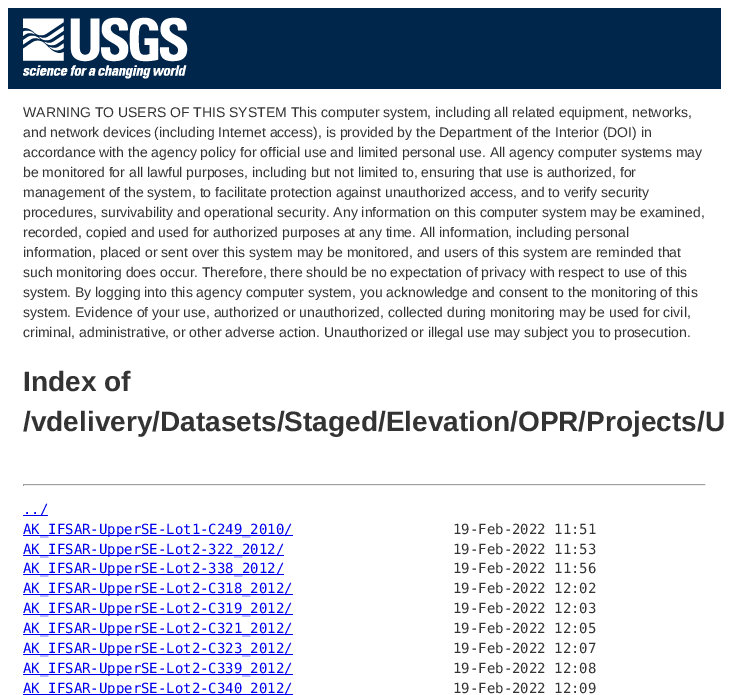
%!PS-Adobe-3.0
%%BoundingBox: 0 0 729 695
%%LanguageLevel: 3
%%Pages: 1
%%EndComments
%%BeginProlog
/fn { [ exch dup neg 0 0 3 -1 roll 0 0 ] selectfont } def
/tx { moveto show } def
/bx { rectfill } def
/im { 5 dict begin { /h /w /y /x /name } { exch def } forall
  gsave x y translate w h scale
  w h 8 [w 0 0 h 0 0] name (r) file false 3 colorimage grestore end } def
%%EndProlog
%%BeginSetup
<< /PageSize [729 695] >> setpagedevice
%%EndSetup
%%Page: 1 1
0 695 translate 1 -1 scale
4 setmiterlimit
1 setgray
0 0 729 695 bx
0 0.149 0.298 setrgbcolor
8 8 713 81 bx
(image0.raw) 23 17 165 62 im
/LiberationSans-Regular 14 fn
0.2 setgray
(WARNING TO USERS OF THIS SYSTEM This computer system, including all related equipment, networks,) 23 117 tx
(and network devices \(including Internet access\), is provided by the Department of the Interior \(DOI\) in) 23 137 tx
(accordance with the agency policy for official use and limited personal use. All agency computer systems may) 23 157 tx
(be monitored for all lawful purposes, including but not limited to, ensuring that use is authorized, for) 23 177 tx
(management of the system, to facilitate protection against unauthorized access, and to verify security) 23 197 tx
(procedures, survivability and operational security. Any information on this computer system may be examined,) 23 217 tx
(recorded, copied and used for authorized purposes at any time. All information, including personal) 23 237 tx
(information, placed or sent over this system may be monitored, and users of this system are reminded that) 23 257 tx
(such monitoring does occur. Therefore, there should be no expectation of privacy with respect to use of this) 23 277 tx
(system. By logging into this agency computer system, you acknowledge and consent to the monitoring of this) 23 297 tx
(system. Evidence of your use, authorized or unauthorized, collected during monitoring may be used for civil,) 23 317 tx
(criminal, administrative, or other adverse action. Unauthorized or illegal use may subject you to prosecution.) 23 337 tx
/LiberationSans-Bold 28 fn
(Index of) 23 391 tx
(/vdelivery/Datasets/Staged/Elevation/OPR/Projects/U) 23 431 tx
0.624 setgray
23 484 683 1 bx
0.933 setgray
705 484 1 2 bx
23 485 683 1 bx
0.624 setgray
23 484 1 2 bx
0 0 0.933 setrgbcolor
23 515 25 1 bx
/DejaVuSansMono-Regular 14 fn
(../) 23 514 tx
23 535 270 1 bx
(AK_IFSAR-UpperSE-Lot1-C249_2010/) 23 534 tx
0.2 setgray
(19-Feb-2022 11:51) 453 534 tx
0 0 0.933 setrgbcolor
23 555 261 1 bx
(AK_IFSAR-UpperSE-Lot2-322_2012/) 23 554 tx
0.2 setgray
(19-Feb-2022 11:53) 453 554 tx
0 0 0.933 setrgbcolor
23 574 261 1 bx
(AK_IFSAR-UpperSE-Lot2-338_2012/) 23 573 tx
0.2 setgray
(19-Feb-2022 11:56) 453 573 tx
0 0 0.933 setrgbcolor
23 594 270 1 bx
(AK_IFSAR-UpperSE-Lot2-C318_2012/) 23 593 tx
0.2 setgray
(19-Feb-2022 12:02) 453 593 tx
0 0 0.933 setrgbcolor
23 614 270 1 bx
(AK_IFSAR-UpperSE-Lot2-C319_2012/) 23 613 tx
0.2 setgray
(19-Feb-2022 12:03) 453 613 tx
0 0 0.933 setrgbcolor
23 634 270 1 bx
(AK_IFSAR-UpperSE-Lot2-C321_2012/) 23 633 tx
0.2 setgray
(19-Feb-2022 12:05) 453 633 tx
0 0 0.933 setrgbcolor
23 654 270 1 bx
(AK_IFSAR-UpperSE-Lot2-C323_2012/) 23 653 tx
0.2 setgray
(19-Feb-2022 12:07) 453 653 tx
0 0 0.933 setrgbcolor
23 674 270 1 bx
(AK_IFSAR-UpperSE-Lot2-C339_2012/) 23 673 tx
0.2 setgray
(19-Feb-2022 12:08) 453 673 tx
0 0 0.933 setrgbcolor
23 694 270 1 bx
(AK_IFSAR-UpperSE-Lot2-C340_2012/) 23 693 tx
0.2 setgray
(19-Feb-2022 12:09) 453 693 tx
showpage
%%EOF
